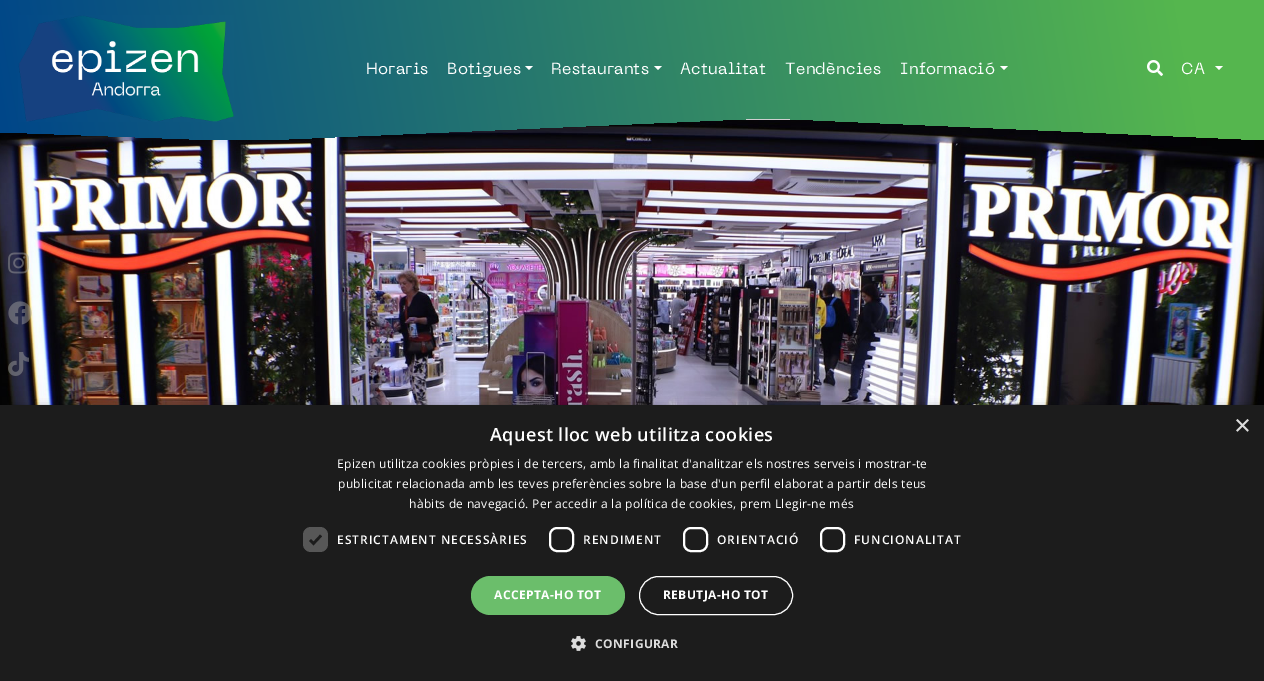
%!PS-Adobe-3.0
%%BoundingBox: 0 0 1264 681
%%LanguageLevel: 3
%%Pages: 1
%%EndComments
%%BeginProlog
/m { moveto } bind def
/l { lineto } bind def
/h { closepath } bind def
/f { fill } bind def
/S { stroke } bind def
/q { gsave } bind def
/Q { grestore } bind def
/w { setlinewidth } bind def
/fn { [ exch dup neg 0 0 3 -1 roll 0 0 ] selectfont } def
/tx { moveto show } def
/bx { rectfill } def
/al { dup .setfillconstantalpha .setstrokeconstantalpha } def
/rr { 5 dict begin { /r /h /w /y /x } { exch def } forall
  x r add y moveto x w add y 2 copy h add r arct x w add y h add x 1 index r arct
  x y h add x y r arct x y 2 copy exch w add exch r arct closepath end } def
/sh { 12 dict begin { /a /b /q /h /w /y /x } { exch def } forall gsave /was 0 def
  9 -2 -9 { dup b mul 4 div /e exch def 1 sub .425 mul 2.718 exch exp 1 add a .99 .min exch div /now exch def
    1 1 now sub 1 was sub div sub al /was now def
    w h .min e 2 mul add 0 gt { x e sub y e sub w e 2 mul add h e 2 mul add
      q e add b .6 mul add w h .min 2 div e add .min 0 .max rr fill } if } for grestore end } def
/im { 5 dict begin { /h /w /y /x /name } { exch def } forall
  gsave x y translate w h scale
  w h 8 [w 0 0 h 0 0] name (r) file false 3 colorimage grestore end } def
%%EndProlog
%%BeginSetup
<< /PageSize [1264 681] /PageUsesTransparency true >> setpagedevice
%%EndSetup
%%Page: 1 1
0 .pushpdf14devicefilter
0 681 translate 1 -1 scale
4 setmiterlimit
1 setgray
0 0 1264 681 bx
(image2.raw) 0 119 1264 286 im
q 0 0 m 1264 0 l 1264 140 l 768 118 l 266 140 l 216 140 l 0 132 l h clip newpath
<< /ShadingType 2 /ColorSpace /DeviceRGB /Coords [1257 -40 7.1 180] /Extend [true true] /Function << /FunctionType 3 /Domain [0 1] /Functions [<< /FunctionType 2 /Domain [0 1] /C0 [0.333 0.714 0.306] /C1 [0.333 0.714 0.306] /N 1 >> << /FunctionType 2 /Domain [0 1] /C0 [0.333 0.714 0.306] /C1 [0 0.275 0.537] /N 1 >>] /Bounds [0.07] /Encode [0 1 0 1] >> >> shfill Q
(image0.raw) 18 15 216 107 im
/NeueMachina-Regular 16 fn
366 74 m 0.25 0 (Horaris) ashow
447 74 m 0.25 0 (Botigues) ashow
525 66 m 533 66 l 529 70 l h f
551 74 m 0.25 0 (Restaurants) ashow
654 66 m 662 66 l 658 70 l h f
680 74 m 0.25 0 (Actualitat) ashow
785 74 m 0.25 0 (Tendències) ashow
900 74 m 0.25 0 (Informació) ashow
1000 66 m 1008 66 l 1004 70 l h f
(image1.raw) 1147 60 16 16 im
1181 74 m 0.25 0 (CA) ashow
1215 66 m 1223 66 l 1219 70 l h f
(image3.raw) 8 252 21 22 im
(image4.raw) 8 301 24 24 im
(image5.raw) 8 352 21 24 im
0 setgray
1 407 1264 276 0 4 0.35 sh
0.11 setgray
0 405 1264 276 bx
/LiberationSans-Regular 29 fn
0.867 setgray
(×) 1234 435 tx
/OpenSans-SemiBold 18 fn
1 setgray
490 441 m 0.4 0 (Aquest lloc web utilitza cookies) ashow
/OpenSans-Regular 12 fn
337 468 m 0.3 0 (Epizen utilitza cookies pròpies i de tercers, amb la finalitat d'analitzar els nostres serveis i mostrar-te) ashow
338 488 m 0.3 0 (publicitat relacionada amb les teves preferències sobre la base d'un perfil elaborat a partir dels teus) ashow
409 508 m 0.3 0 (hàbits de navegació. Per accedir a la política de cookies, prem Llegir-ne més) ashow
0.341 setgray
303 527 25 25 8 rr f
0.11 setgray
2.6 w
310 540 m 313.5 543.5 l 321 535.5 l S
/OpenSans-SemiBold 12 fn
1 setgray
337 544 m 1 0 (ESTRICTAMENT NECESSÀRIES) ashow
2 w
550 528 23 23 7 rr S
583 544 m 1 0 (RENDIMENT) ashow
684 528 23 23 7 rr S
717 544 m 1 0 (ORIENTACIÓ) ashow
821 528 23 23 7 rr S
854 544 m 1 0 (FUNCIONALITAT) ashow
0.42 0.745 0.42 setrgbcolor
471 576 154 39 19.5 rr f
/OpenSans-Bold 12 fn
1 setgray
494 599 m 0.4 0 (ACCEPTA-HO TOT) ashow
1 w
639.5 576.5 153 38 19 rr S
663 599 m 0.4 0 (REBUTJA-HO TOT) ashow
(image6.raw) 571 636 15 15 im
0.867 setgray
595 648 m 0.4 0 (CONFIGURAR) ashow
.poppdf14devicefilter showpage
%%EOF
